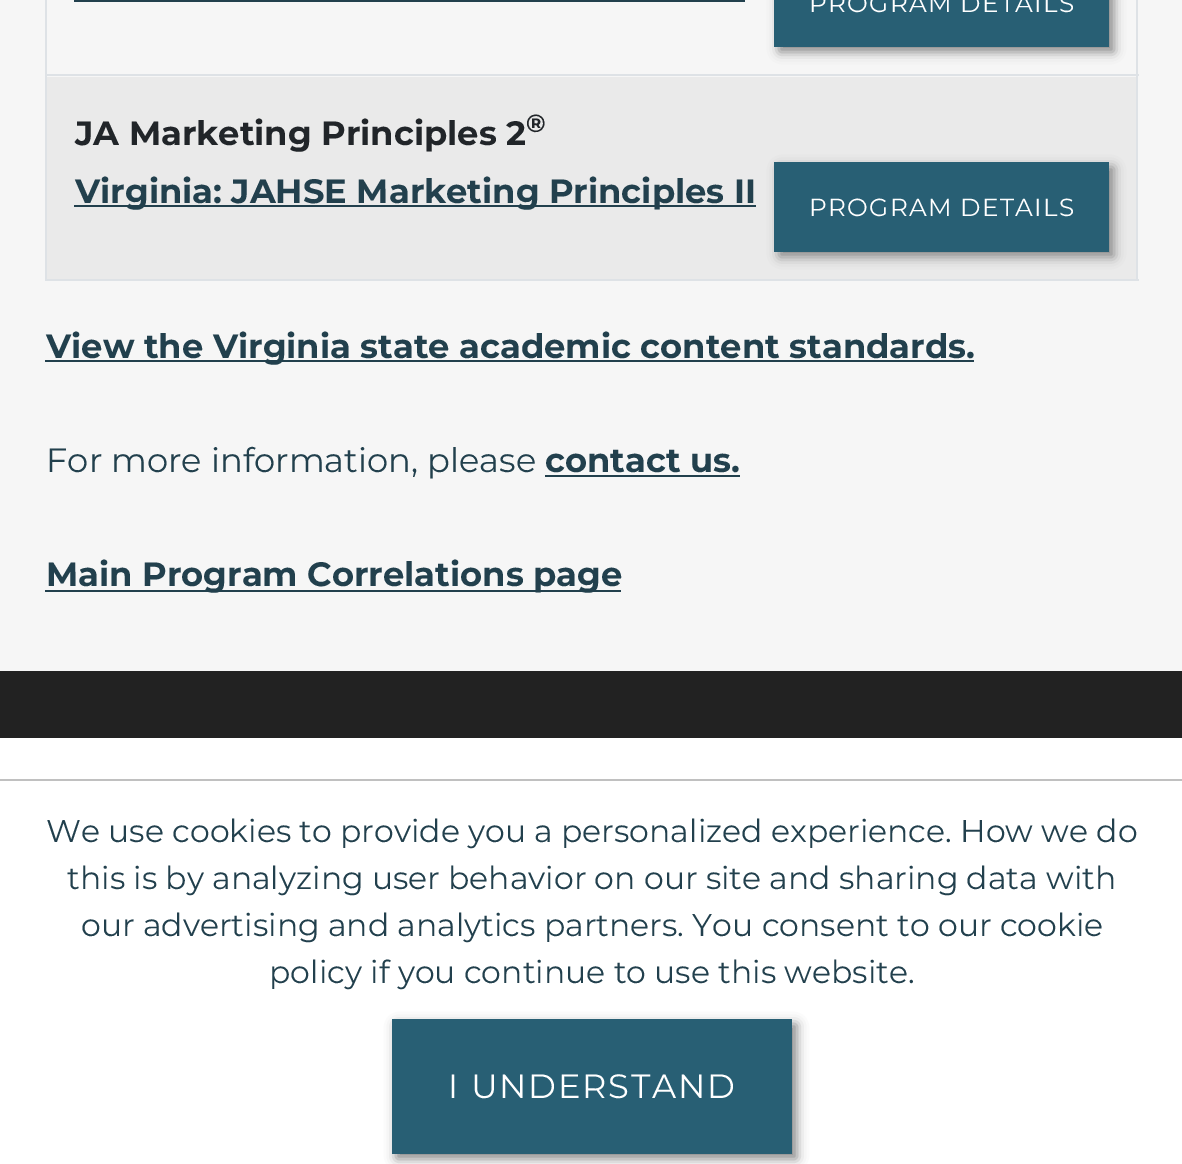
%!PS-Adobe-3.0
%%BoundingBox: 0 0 1182 1164
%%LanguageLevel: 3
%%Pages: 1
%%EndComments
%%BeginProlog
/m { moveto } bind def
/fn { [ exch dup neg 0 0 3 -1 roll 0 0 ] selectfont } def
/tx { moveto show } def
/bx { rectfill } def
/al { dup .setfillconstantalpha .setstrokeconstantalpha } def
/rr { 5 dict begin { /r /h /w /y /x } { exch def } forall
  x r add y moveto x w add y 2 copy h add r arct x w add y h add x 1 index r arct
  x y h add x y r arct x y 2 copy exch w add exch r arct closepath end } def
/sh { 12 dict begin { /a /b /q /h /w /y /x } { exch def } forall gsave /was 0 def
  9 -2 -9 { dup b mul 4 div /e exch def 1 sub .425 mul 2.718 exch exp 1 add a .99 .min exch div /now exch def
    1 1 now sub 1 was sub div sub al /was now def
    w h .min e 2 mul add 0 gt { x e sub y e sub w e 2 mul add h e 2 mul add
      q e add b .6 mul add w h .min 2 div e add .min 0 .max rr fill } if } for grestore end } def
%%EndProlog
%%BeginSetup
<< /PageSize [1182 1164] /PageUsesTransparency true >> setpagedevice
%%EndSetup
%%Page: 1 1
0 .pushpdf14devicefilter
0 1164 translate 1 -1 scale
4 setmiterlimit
0.965 setgray
0 0 1182 1164 bx
0.871 0.886 0.902 setrgbcolor
1136 0 2 281 bx
45 279 1094 2 bx
45 0 2 281 bx
0.133 0.251 0.302 setrgbcolor
74 0 671 2 bx
0.533 setgray
779 -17 335 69 0 5.5 1 sh
0.157 0.373 0.455 setrgbcolor
774 0 335 47 bx
/Montserrat-Regular 24.75 fn
1 setgray
809 12 m 1.25 0 (PROGRAM DETAILS) ashow
0.918 setgray
47 77 1089 202 bx
0.871 0.886 0.902 setrgbcolor
45 74 1094 2 bx
/Montserrat-Bold 33.75 fn
0.129 0.145 0.161 setrgbcolor
(JA Marketing Principles 2) 75 145 tx
/Montserrat-Bold 25 fn
(®) 526 132 tx
0.133 0.251 0.302 setrgbcolor
74 205 682 2 bx
/Montserrat-Bold 33.75 fn
(Virginia: JAHSE Marketing Principles II) 75 203 tx
0.533 setgray
779 167 335 90 0 5.5 1 sh
0.157 0.373 0.455 setrgbcolor
774 162 335 90 bx
/Montserrat-Regular 24.75 fn
1 setgray
809 216 m 1.25 0 (PROGRAM DETAILS) ashow
0.133 0.251 0.302 setrgbcolor
45 360 929 2 bx
/Montserrat-Bold 33.75 fn
(View the Virginia state academic content standards.) 46 358 tx
/Montserrat-Regular 33.75 fn
(For more information, please) 46 472 tx
/Montserrat-Bold 33.75 fn
(contact us.) 545 472 tx
545 475 195 2 bx
45 590 576 2 bx
(Main Program Correlations page) 46 586 tx
0.133 setgray
0 671 1182 67 bx
1 setgray
0 738 1182 41 bx
0 781 1182 383 bx
0.753 setgray
0 779 1182 2 bx
/Montserrat-Regular 31.5 fn
0.133 0.251 0.302 setrgbcolor
(We use cookies to provide you a personalized experience. How we do) 46 842 tx
(this is by analyzing user behavior on our site and sharing data with) 67 889 tx
(our advertising and analytics partners. You consent to our cookie) 81 936 tx
(policy if you continue to use this website.) 269 983 tx
0.533 setgray
396 1024 401 135 0 5.5 1 sh
0.157 0.373 0.455 setrgbcolor
392 1019 400 135 bx
/Montserrat-Regular 33.75 fn
1 setgray
448 1098 m 1.75 0 (I UNDERSTAND) ashow
.poppdf14devicefilter showpage
%%EOF
